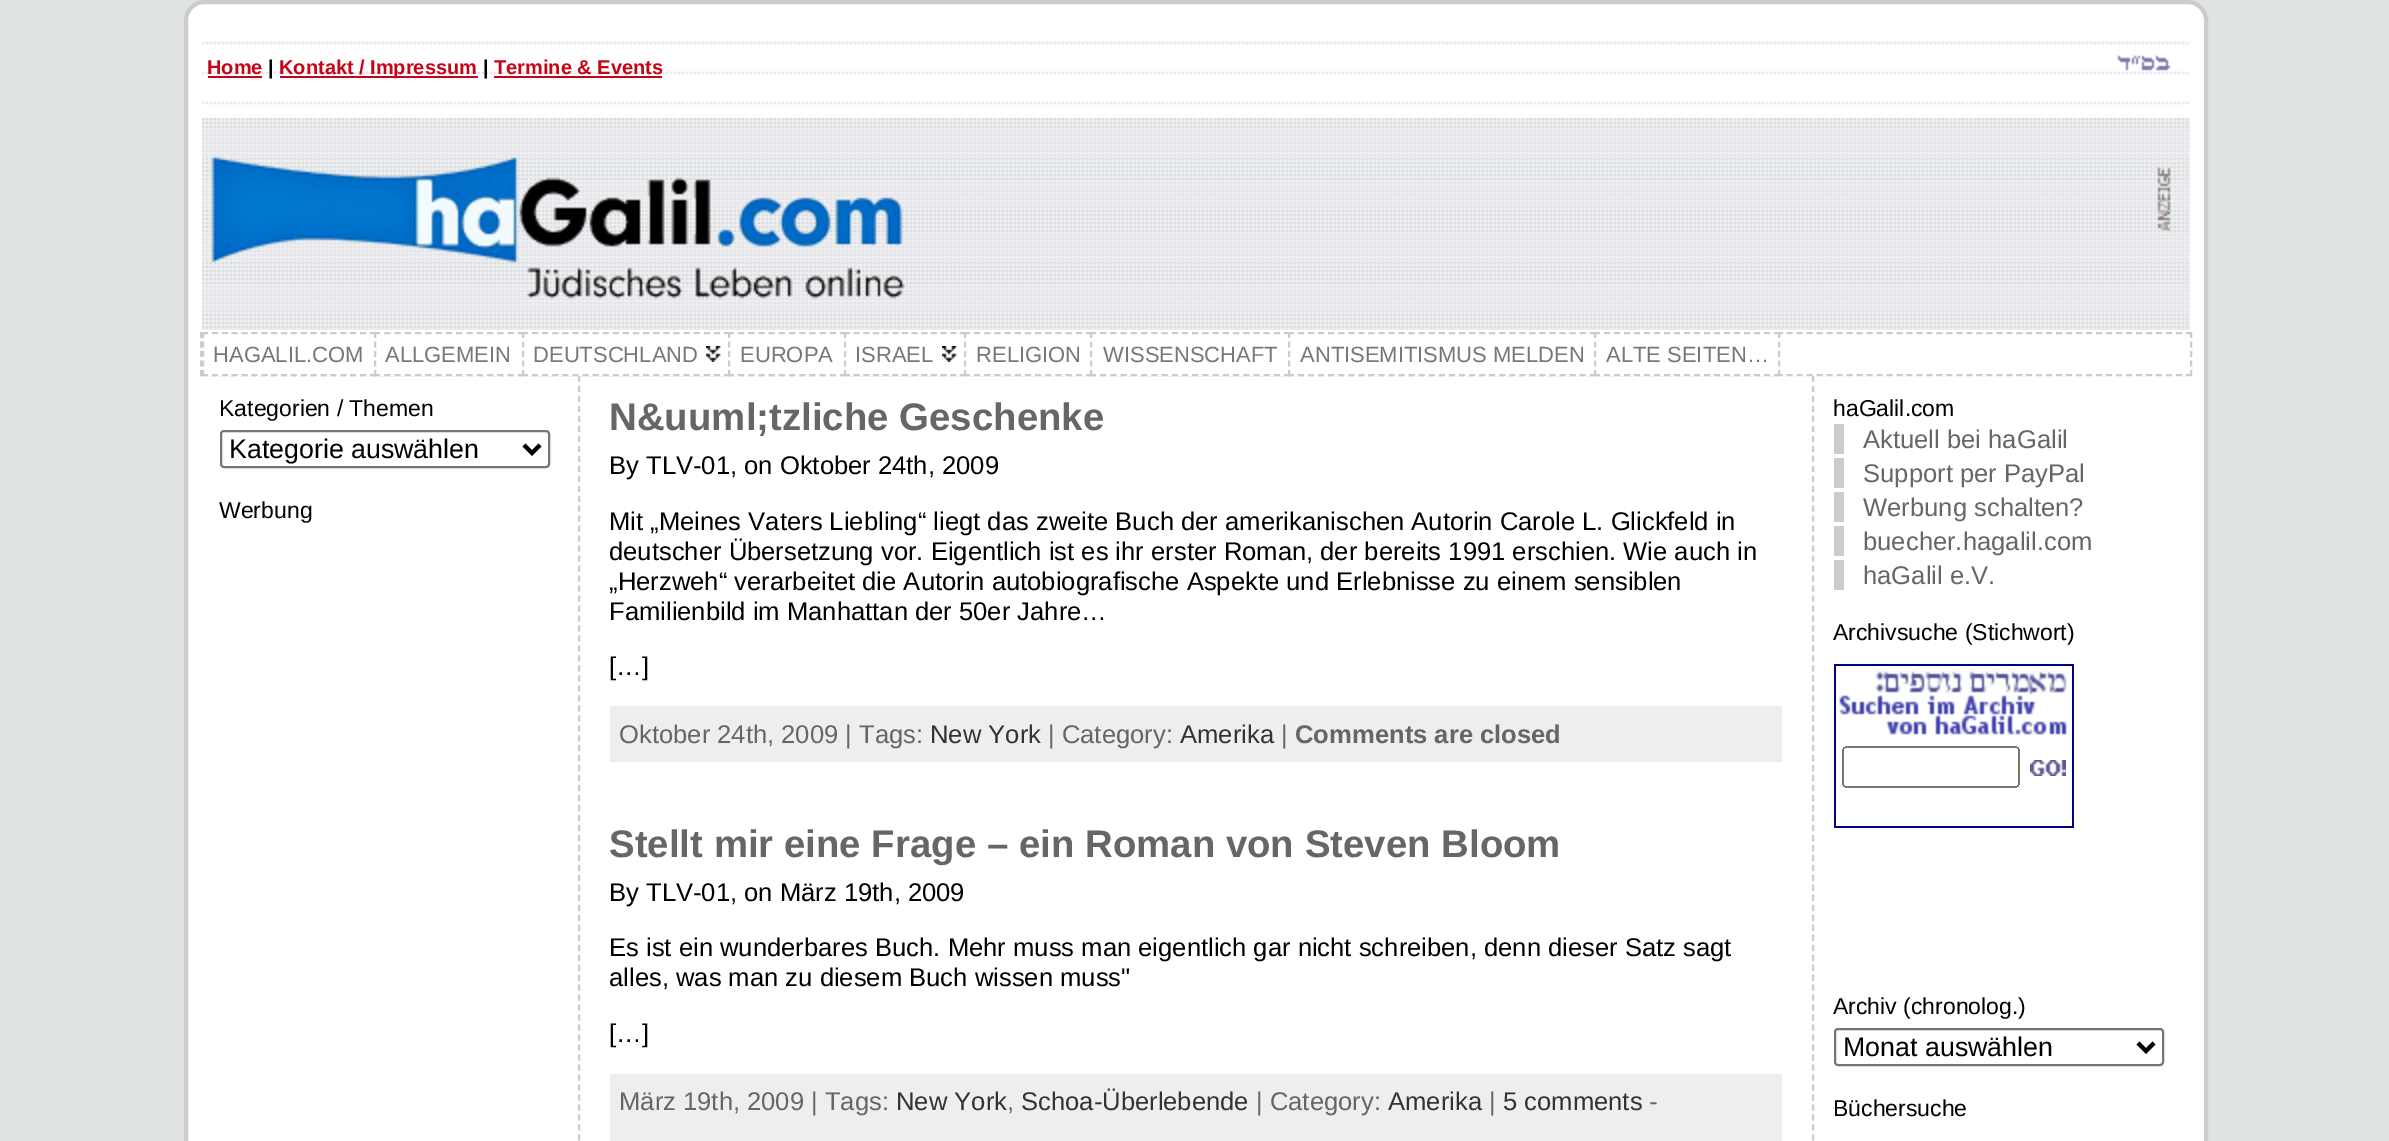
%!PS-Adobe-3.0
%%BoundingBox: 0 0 2389 1141
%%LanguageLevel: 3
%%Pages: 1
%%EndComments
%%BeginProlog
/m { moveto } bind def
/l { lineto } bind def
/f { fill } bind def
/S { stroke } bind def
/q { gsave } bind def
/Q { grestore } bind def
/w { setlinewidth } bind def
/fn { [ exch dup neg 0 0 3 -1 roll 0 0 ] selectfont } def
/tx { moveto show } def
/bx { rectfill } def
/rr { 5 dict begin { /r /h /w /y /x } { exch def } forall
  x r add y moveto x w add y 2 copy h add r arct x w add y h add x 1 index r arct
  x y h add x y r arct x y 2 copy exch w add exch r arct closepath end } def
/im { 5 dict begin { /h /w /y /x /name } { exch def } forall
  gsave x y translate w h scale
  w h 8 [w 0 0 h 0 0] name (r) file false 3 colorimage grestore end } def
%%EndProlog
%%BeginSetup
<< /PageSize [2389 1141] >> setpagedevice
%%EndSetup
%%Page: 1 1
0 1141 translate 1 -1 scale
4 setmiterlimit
0.878 0.89 0.894 setrgbcolor
0 0 2389 1141 bx
1 setgray
186 2 2020 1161 18 rr q f Q
0.8 setgray
4 w
S
(image0.raw) 202 41 1988 64 im
/LiberationSans-Bold 20 fn
0.776 0.016 0.09 setrgbcolor
(Home) 207 74 tx
208 76 54 2 bx
0 setgray
(|) 268 74 tx
0.776 0.016 0.09 setrgbcolor
280 76 198 2 bx
(Kontakt / Impressum) 279 74 tx
0 setgray
(|) 483 74 tx
0.776 0.016 0.09 setrgbcolor
(Termine & Events) 494 74 tx
494 76 168 2 bx
(image1.raw) 2117 55 54 16 im
(image2.raw) 202 118 1988 212 im
(image3.raw) 211 156 694 143 im
(image4.raw) 2157 167 14 66 im
0.8 setgray
2 w
[6 3.98] 0 setdash
200 333 m 2192 333 l S
[6 3.5] 0 setdash
2191 332 m 2191 376 l S
[6 3.98] 0 setdash
200 375 m 2192 375 l S
[6 3.5] 0 setdash
201 332 m 201 376 l S
1 setgray
202 332 172 44 bx
0.8 setgray
[6 3.88] 0 setdash
202 333 m 376 333 l S
202 375 m 376 375 l S
[6 3.5] 0 setdash
203 332 m 203 376 l S
/LiberationSans-Regular 22 fn
0.467 setgray
(HAGALIL.COM) 213 362 tx
1 setgray
374 332 148 44 bx
0.8 setgray
[6 4.28] 0 setdash
374 333 m 524 333 l S
374 375 m 524 375 l S
[6 3.5] 0 setdash
375 332 m 375 376 l S
0.467 setgray
(ALLGEMEIN) 385 362 tx
1 setgray
522 332 203 44 bx
(image5.raw) 706 346 15 16 im
0.8 setgray
[6 4.1] 0 setdash
522 333 m 730 333 l S
522 375 m 730 375 l S
[6 3.5] 0 setdash
523 332 m 523 376 l S
0.467 setgray
(DEUTSCHLAND) 533 362 tx
1 setgray
728 332 116 44 bx
0.8 setgray
[6 4.18] 0 setdash
728 333 m 846 333 l S
728 375 m 846 375 l S
[6 3.5] 0 setdash
729 332 m 729 376 l S
0.467 setgray
(EUROPA) 740 362 tx
1 setgray
844 332 120 44 bx
(image5.raw) 942 346 15 16 im
0.8 setgray
[6 3.66] 0 setdash
844 333 m 966 333 l S
844 375 m 966 375 l S
[6 3.5] 0 setdash
845 332 m 845 376 l S
0.467 setgray
(ISRAEL) 855 362 tx
1 setgray
964 332 126 44 bx
0.8 setgray
[6 4.16] 0 setdash
964 333 m 1092 333 l S
964 375 m 1092 375 l S
[6 3.5] 0 setdash
965 332 m 965 376 l S
0.467 setgray
(RELIGION) 976 362 tx
1 setgray
1090 332 198 44 bx
0.8 setgray
[6 4.22] 0 setdash
1090 333 m 1290 333 l S
1090 375 m 1290 375 l S
[6 3.5] 0 setdash
1091 332 m 1091 376 l S
0.467 setgray
(WISSENSCHAFT) 1103 362 tx
1 setgray
1288 332 306 44 bx
0.8 setgray
[6 4.06] 0 setdash
1288 333 m 1596 333 l S
1288 375 m 1596 375 l S
[6 3.5] 0 setdash
1289 332 m 1289 376 l S
0.467 setgray
(ANTISEMITISMUS MELDEN) 1300 362 tx
1 setgray
1594 332 186 44 bx
0.8 setgray
[6 4] 0 setdash
1594 333 m 1780 333 l S
[6 3.5] 0 setdash
1779 332 m 1779 376 l S
[6 4] 0 setdash
1594 375 m 1780 375 l S
[6 3.5] 0 setdash
1595 332 m 1595 376 l S
0.467 setgray
(ALTE SEITEN…) 1606 362 tx
0.8 setgray
[6 3.98] 0 setdash
579 376 m 579 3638 l S
/LiberationSans-Regular 23 fn
0 setgray
(Kategorien / Themen) 219 416 tx
0.463 setgray
[] 0 setdash
221 431 328 36 3 rr S
0 setgray
4 w
524 445 m 532 453 l 540 445 l S
/LiberationSans-Regular 26.75 fn
(Kategorie auswählen) 229 458 tx
/LiberationSans-Regular 23 fn
(Werbung) 219 518 tx
/LiberationSans-Bold 38.4 fn
0.4 setgray
(N&uuml;tzliche Geschenke) 609 430 tx
/LiberationSans-Regular 25.6 fn
0 setgray
(By TLV-01, on Oktober 24th, 2009) 609 474 tx
(Mit „Meines Vaters Liebling“ liegt das zweite Buch der amerikanischen Autorin Carole L. Glickfeld in) 609 530 tx
(deutscher Übersetzung vor. Eigentlich ist es ihr erster Roman, der bereits 1991 erschien. Wie auch in) 609 560 tx
(„Herzweh“ verarbeitet die Autorin autobiografische Aspekte und Erlebnisse zu einem sensiblen) 609 590 tx
(Familienbild im Manhattan der 50er Jahre…) 609 620 tx
([…]) 609 675 tx
0.933 setgray
610 706 1172 56 bx
0.4 setgray
(Oktober 24th, 2009 | Tags:) 619 743 tx
0.2 setgray
(New York) 930 743 tx
0.4 setgray
(| Category:) 1048 743 tx
0.2 setgray
(Amerika) 1180 743 tx
0.4 setgray
(|) 1281 743 tx
/LiberationSans-Bold 25.6 fn
(Comments are closed) 1295 743 tx
/LiberationSans-Bold 38.4 fn
(Stellt mir eine Frage – ein Roman von Steven Bloom) 609 857 tx
/LiberationSans-Regular 25.6 fn
0 setgray
(By TLV-01, on März 19th, 2009) 609 901 tx
(Es ist ein wunderbares Buch. Mehr muss man eigentlich gar nicht schreiben, denn dieser Satz sagt) 609 956 tx
(alles, was man zu diesem Buch wissen muss") 609 986 tx
([…]) 609 1042 tx
0.933 setgray
610 1074 1172 67 bx
0.4 setgray
(März 19th, 2009 | Tags:) 619 1110 tx
0.2 setgray
(New York) 896 1110 tx
(Schoa-Überlebende) 1021 1110 tx
0.4 setgray
(| Category:) 1256 1110 tx
0.2 setgray
(Amerika) 1388 1110 tx
0.4 setgray
(|) 1489 1110 tx
0.2 setgray
(5 comments) 1503 1110 tx
0.4 setgray
(-) 1649 1110 tx
(,) 1007 1110 tx
0.8 setgray
2 w
[6 3.98] 0 setdash
1813 376 m 1813 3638 l S
/LiberationSans-Regular 23 fn
0 setgray
(haGalil.com) 1833 416 tx
0.8 setgray
1834 424 10 30 bx
/LiberationSans-Regular 25.6 fn
0.4 setgray
(Aktuell bei haGalil) 1863 448 tx
0.8 setgray
1834 458 10 30 bx
0.4 setgray
(Support per PayPal) 1863 482 tx
0.8 setgray
1834 492 10 30 bx
0.4 setgray
(Werbung schalten?) 1863 516 tx
0.8 setgray
1834 526 10 30 bx
0.4 setgray
(buecher.hagalil.com) 1863 550 tx
0.8 setgray
1834 560 10 30 bx
0.4 setgray
(haGalil e.V.) 1863 584 tx
/LiberationSans-Regular 23 fn
0 setgray
(Archivsuche \(Stichwort\)) 1833 640 tx
(image6.raw) 1834 664 240 164 im
(Archiv \(chronolog.\)) 1833 1014 tx
0.463 setgray
[] 0 setdash
1835 1029 328 36 3 rr S
0 setgray
4 w
2138 1043 m 2146 1051 l 2154 1043 l S
/LiberationSans-Regular 26.75 fn
(Monat auswählen) 1843 1056 tx
/LiberationSans-Regular 23 fn
(Büchersuche) 1833 1116 tx
showpage
%%EOF
